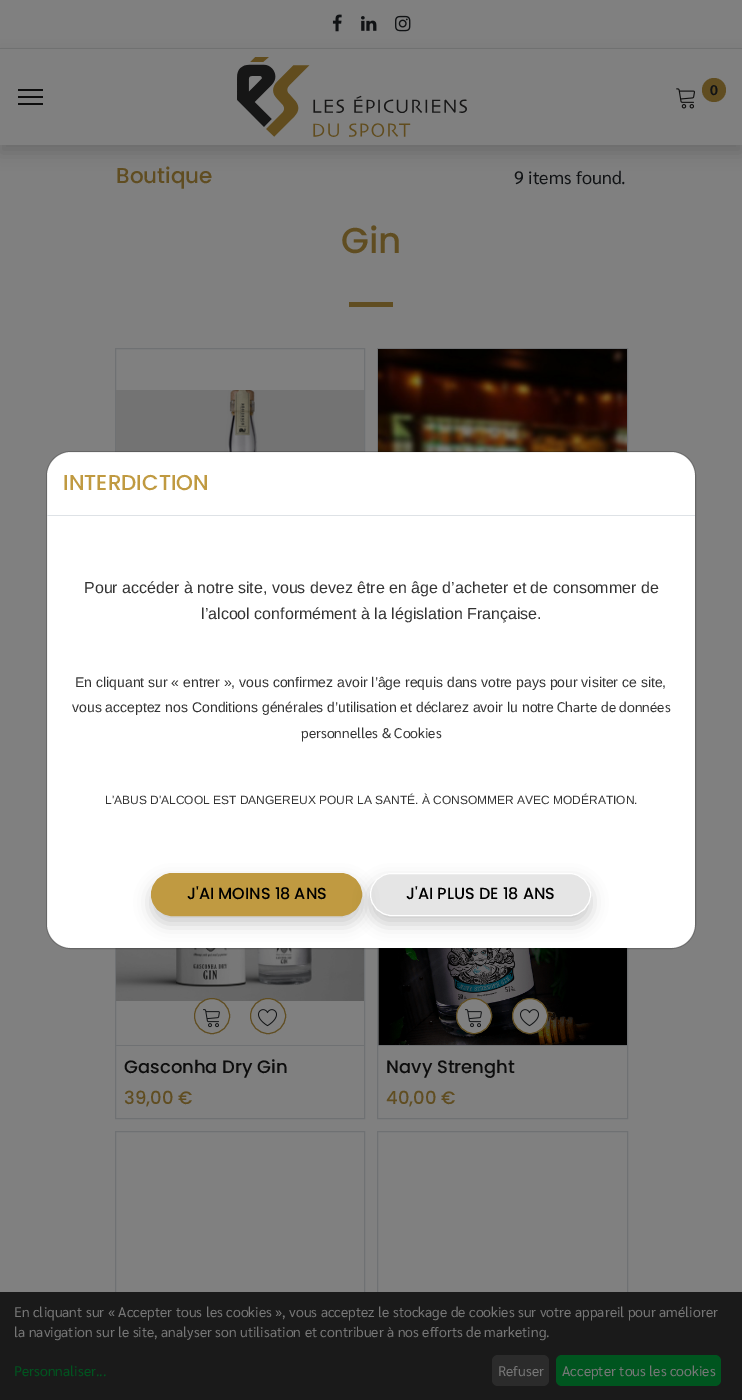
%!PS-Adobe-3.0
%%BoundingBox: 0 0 742 1400
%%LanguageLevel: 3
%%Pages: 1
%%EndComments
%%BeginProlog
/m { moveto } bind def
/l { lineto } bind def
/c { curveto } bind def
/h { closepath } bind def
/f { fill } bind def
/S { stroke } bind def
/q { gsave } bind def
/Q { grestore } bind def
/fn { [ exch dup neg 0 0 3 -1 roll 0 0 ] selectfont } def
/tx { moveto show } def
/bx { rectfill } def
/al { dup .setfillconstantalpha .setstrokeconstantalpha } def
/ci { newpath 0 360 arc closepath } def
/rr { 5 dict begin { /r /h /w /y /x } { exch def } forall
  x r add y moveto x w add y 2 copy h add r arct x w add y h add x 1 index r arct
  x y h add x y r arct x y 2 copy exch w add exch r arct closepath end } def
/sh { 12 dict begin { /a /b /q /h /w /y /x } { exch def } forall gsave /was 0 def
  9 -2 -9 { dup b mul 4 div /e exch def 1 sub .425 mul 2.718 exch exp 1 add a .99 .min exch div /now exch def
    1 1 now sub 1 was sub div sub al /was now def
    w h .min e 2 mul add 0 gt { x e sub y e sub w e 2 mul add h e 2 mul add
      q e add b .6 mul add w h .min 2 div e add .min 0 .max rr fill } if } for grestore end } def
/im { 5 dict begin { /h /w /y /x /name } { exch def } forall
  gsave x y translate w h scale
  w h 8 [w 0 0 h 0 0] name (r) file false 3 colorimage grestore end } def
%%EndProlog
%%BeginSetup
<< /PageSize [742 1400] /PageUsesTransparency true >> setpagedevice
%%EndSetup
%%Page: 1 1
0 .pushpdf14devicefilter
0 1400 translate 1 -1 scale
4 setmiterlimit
0.502 setgray
0 0 742 1400 bx
0.447 0.451 0.451 setrgbcolor
0 48 742 1 bx
(image0.raw) 332 14 10 18 im
(image1.raw) 361 16 16 15 im
(image2.raw) 395 15 16 17 im
q
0 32 m 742 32 l 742 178 l 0 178 l h 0 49 m 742 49 l 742 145 l 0 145 l h eoclip newpath
0 setgray
0 57 742 96 0 8 0.15 sh
Q
0.051 setgray
18 89 25 2 bx
18 96 25 2 bx
18 103 25 2 bx
(image3.raw) 237 57 230 80 im
(image4.raw) 676 88 19 21 im
0.376 0.302 0.129 setrgbcolor
714 90 12 ci f
/Sarabun-Bold 14 fn
0.067 0.075 0.082 setrgbcolor
(0) 710 95 tx
/Poppins-Medium 21.5 fn
0.376 0.302 0.129 setrgbcolor
(Boutique) 116 183 tx
/Sarabun-Regular 18 fn
0.067 0.075 0.082 setrgbcolor
(9 items found.) 514 184 tx
/Poppins-Medium 36 fn
0.376 0.302 0.129 setrgbcolor
(Gin) 341 253 tx
349 302 44 5 bx
0.435 0.443 0.451 setrgbcolor
115.5 348.5 249 404 rectstroke
(image5.raw) 116 390 248 62 im
377.5 348.5 250 404 rectstroke
(image6.raw) 378 349 249 103 im
115.5 765.5 249 353 rectstroke
(image7.raw) 116 948 248 53 im
116 1045 248 1 bx
0.502 setgray
212 1016 17.5 ci q f Q
0.376 0.302 0.129 setrgbcolor
S
(image8.raw) 203 1009 17 19 im
0.502 setgray
268 1016 17.5 ci q f Q
0.376 0.302 0.129 setrgbcolor
S
(image9.raw) 258 1009 19 18 im
/Poppins-Medium 18 fn
0.051 setgray
(Gasconha Dry Gin) 124 1073 tx
0.376 0.302 0.129 setrgbcolor
(39,00 €) 124 1104 tx
0.435 0.443 0.451 setrgbcolor
377.5 765.5 250 353 rectstroke
(image10.raw) 378 948 249 97 im
378 1045 249 1 bx
0.502 setgray
474 1016 17.5 ci q f Q
0.376 0.302 0.129 setrgbcolor
S
(image8.raw) 465 1009 17 19 im
0.502 setgray
530 1016 17.5 ci q f Q
0.376 0.302 0.129 setrgbcolor
S
(image9.raw) 520 1009 19 18 im
0.051 setgray
(Navy Strenght) 386 1073 tx
0.376 0.302 0.129 setrgbcolor
(40,00 €) 386 1104 tx
0.435 0.443 0.451 setrgbcolor
115.5 1131.5 249 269 rectstroke
377.5 1131.5 250 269 rectstroke
1 setgray
47 452 648 496 24 rr f
0.2 al
0 setgray
46.5 451.5 649 497 24.5 rr S
1 al
0.871 0.886 0.902 setrgbcolor
47 515 648 1 bx
/Poppins-Medium 21.5 fn
0.753 0.604 0.255 setrgbcolor
(INTERDICTION) 63 490 tx
/LiberationSans-Regular 16 fn
0.2 setgray
(Pour accéder à notre site, vous devez être en âge d’acheter et de consommer de) 84 593 tx
(l’alcool conformément à la législation Française.) 201 619 tx
/LiberationSans-Regular 14 fn
(En cliquant sur « entrer », vous confirmez avoir l’âge requis dans votre pays pour visiter ce site,) 75 687 tx
(vous acceptez nos Conditions générales d’utilisation et déclarez avoir lu notre) 72 712 tx
/Sarabun-Regular 14 fn
(Charte de données) 557 712 tx
(personnelles & Cookies) 301 738 tx
/LiberationSans-Regular 12 fn
(L'ABUS D'ALCOOL EST DANGEREUX POUR LA SANTÉ. À CONSOMMER AVEC MODÉRATION.) 105 804 tx
0 setgray
151 881 211 43 21.5 8 0.2 sh
0.753 0.604 0.255 setrgbcolor
151.5 873.5 210 42 21 rr q f Q
S
/Poppins-Medium 16 fn
0 setgray
(J'AI MOINS 18 ANS) 187 899 tx
q
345 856 m 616 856 l 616 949 l 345 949 l h 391.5 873 m 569.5 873 l 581.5 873 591 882.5 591 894.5 c 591 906.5 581.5 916 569.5 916 c 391.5 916 l 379.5 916 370 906.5 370 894.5 c 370 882.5 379.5 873 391.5 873 c h eoclip newpath
370 881 221 43 21.5 8 0.2 sh
Q
0.1 al
370.5 873.5 220 42 21 rr f
1 al
1 setgray
370.5 873.5 220 42 21 rr S
0 setgray
(J'AI PLUS DE 18 ANS) 406 899 tx
0.102 setgray
0 1292 742 108 bx
/Sarabun-Regular 14 fn
0.467 setgray
(En cliquant sur « Accepter tous les cookies », vous acceptez le stockage de cookies sur votre appareil pour améliorer) 14 1317 tx
(la navigation sur le site, analyser son utilisation et contribuer à nos efforts de marketing.) 14 1337 tx
0 0.333 0.122 setrgbcolor
(Personnaliser...) 14 1376 tx
0.169 setgray
492 1355 57 31 6 rr f
0.467 setgray
(Refuser) 498 1376 tx
0 0.333 0.122 setrgbcolor
556 1355 165 31 6 rr f
0.467 setgray
(Accepter tous les cookies) 562 1376 tx
.poppdf14devicefilter showpage
%%EOF
